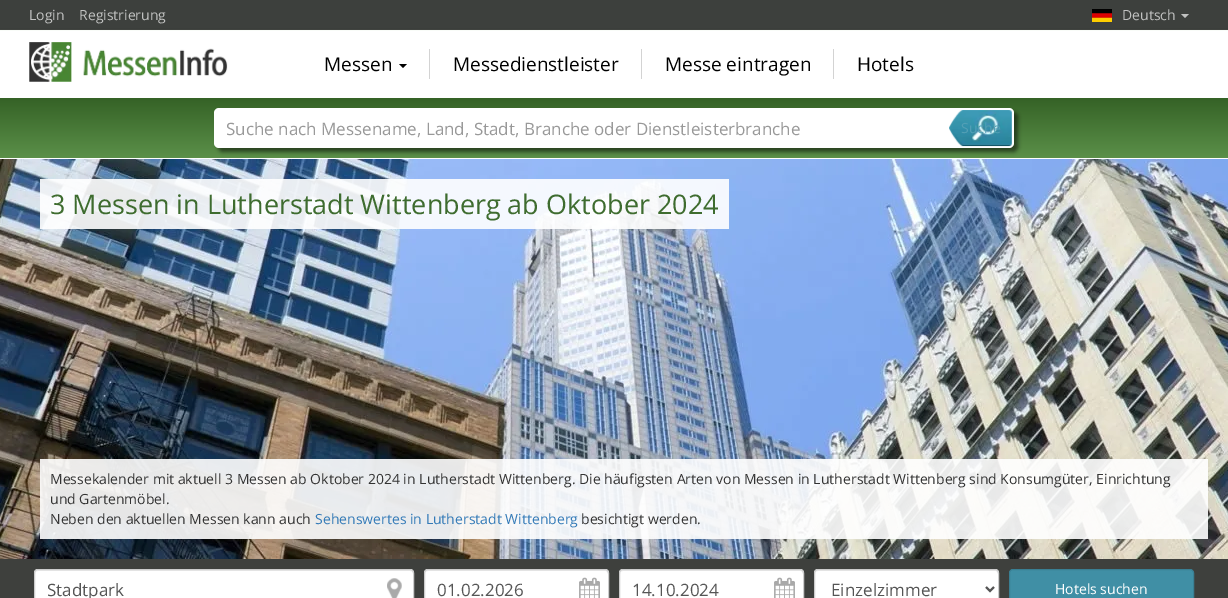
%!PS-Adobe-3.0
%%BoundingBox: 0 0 1228 598
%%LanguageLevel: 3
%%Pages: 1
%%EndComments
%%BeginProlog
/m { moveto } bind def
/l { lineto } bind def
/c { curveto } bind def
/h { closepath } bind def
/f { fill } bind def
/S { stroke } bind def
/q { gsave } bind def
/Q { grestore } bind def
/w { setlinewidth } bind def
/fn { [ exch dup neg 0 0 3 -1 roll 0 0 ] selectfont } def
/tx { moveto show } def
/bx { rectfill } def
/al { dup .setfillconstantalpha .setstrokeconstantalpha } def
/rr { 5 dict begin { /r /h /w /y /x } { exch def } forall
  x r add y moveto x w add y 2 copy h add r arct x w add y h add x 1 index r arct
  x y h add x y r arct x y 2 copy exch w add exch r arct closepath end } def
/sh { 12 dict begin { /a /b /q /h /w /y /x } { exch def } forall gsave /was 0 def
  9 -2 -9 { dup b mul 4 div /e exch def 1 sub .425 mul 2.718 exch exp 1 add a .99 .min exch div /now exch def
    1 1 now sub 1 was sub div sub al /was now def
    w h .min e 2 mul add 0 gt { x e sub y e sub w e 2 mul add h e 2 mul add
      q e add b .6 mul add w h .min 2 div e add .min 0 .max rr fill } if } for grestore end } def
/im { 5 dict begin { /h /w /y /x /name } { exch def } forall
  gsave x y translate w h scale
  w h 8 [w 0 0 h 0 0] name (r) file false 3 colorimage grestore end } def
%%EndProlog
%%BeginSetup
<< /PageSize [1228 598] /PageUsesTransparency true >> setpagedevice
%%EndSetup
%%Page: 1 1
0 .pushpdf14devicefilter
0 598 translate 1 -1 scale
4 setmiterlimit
1 setgray
0 0 1228 598 bx
(image0.raw) 0 0 1228 31 im
/OpenSans-Regular 14 fn
0.757 0.761 0.757 setrgbcolor
(Login) 29 20 tx
(Registrierung) 79 20 tx
(image1.raw) 1092 9 20 13 im
(Deutsch) 1122 20 tx
1181 14 m 1189 14 l 1185 18 l h f
(image2.raw) 29 42 199 40 im
/OpenSans-Regular 19 fn
0 setgray
(Messen) 324 71 tx
399 64 m 407 64 l 403 68 l h f
0.827 setgray
429 49 1 30 bx
0 setgray
(Messedienstleister) 453 71 tx
0.827 setgray
641 49 1 30 bx
0 setgray
(Messe eintragen) 665 71 tx
0.827 setgray
833 49 1 30 bx
0 setgray
(Hotels) 857 71 tx
q 0 98 m 1228 98 l 1228 158 l 0 158 l h clip newpath
<< /ShadingType 2 /ColorSpace /DeviceRGB /Coords [614 98 614 158] /Extend [true true] /Function << /FunctionType 2 /Domain [0 1] /C0 [0.208 0.384 0.149] /C1 [0.357 0.565 0.286] /N 1 >> >> shfill Q
218 112 800 40 5 2 0.5 sh
1 setgray
214 108 800 40 5 rr f
/OpenSans-Regular 17 fn
0.6 setgray
(Suche nach Messename, Land, Stadt, Branche oder Dienstleisterbranche) 226 135 tx
(image3.raw) 949 110 63 37 im
/OpenSans-Regular 14 fn
0.322 0.624 0.71 setrgbcolor
(Suche) 961 133 tx
(image4.raw) 0 159 1228 400 im
0.9 al
1 setgray
40 179 689 50 bx
/OpenSans-Regular 27 fn
1 al
0.243 0.424 0.184 setrgbcolor
(3 Messen in Lutherstadt Wittenberg ab Oktober 2024) 50 214 tx
0.9 al
1 setgray
40 459 1168 80 bx
/OpenSans-Regular 14 fn
1 al
0.2 setgray
(Messekalender mit aktuell 3 Messen ab Oktober 2024 in Lutherstadt Wittenberg. Die häufigsten Arten von Messen in Lutherstadt Wittenberg sind Konsumgüter, Einrichtung) 50 484 tx
(und Gartenmöbel.) 50 504 tx
(Neben den aktuellen Messen kann auch) 50 524 tx
0.2 0.478 0.718 setrgbcolor
(Sehenswertes in Lutherstadt Wittenberg) 315 524 tx
0.2 setgray
(besichtigt werden.) 581 524 tx
0.243 0.251 0.239 setrgbcolor
0 559 1228 39 bx
1 setgray
34 569 380 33 4 rr f
(image5.raw) 387 578 15 20 im
0.925 setgray
38 571 m 410 571 l 412 571 413 572 413 574 c 413 572 412 570 410 570 c 38 570 l 36 571 l 35 574 l 35 572 36 571 38 571 c h f
0.8 setgray
34.5 569.5 379 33 3.5 rr S
/OpenSans-Regular 17 fn
0.333 setgray
(Stadtpark) 47 596 tx
1 setgray
424 569 185 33 4 rr f
(image6.raw) 579 577 21 21 im
0.925 setgray
428 571 m 606 571 l 607 572 l 608 574 l 608 572 607 570 605 570 c 427 570 l 425 571 425 572 425 574 c 425 572 426 571 428 571 c h f
0.8 setgray
424.5 569.5 184 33 3.5 rr S
0.333 setgray
(01.02.2026) 437 596 tx
1 setgray
619 569 185 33 4 rr f
(image6.raw) 774 577 21 21 im
0.925 setgray
623 571 m 801 571 l 802 572 l 803 574 l 803 572 802 570 800 570 c 622 570 l 620 571 620 572 620 574 c 620 572 621 571 623 571 c h f
0.8 setgray
619.5 569.5 184 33 3.5 rr S
0.333 setgray
(14.10.2024) 632 596 tx
1 setgray
814 569 185 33 4 rr f
0.925 setgray
818 571 m 996 571 l 997 572 l 998 574 l 998 572 997 570 995 570 c 817 570 l 815 571 815 572 815 574 c 815 572 816 571 818 571 c h f
0.8 setgray
814.5 569.5 184 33 3.5 rr S
0.333 setgray
2 w
986 587 m 990 591 l 994 587 l S
(Einzelzimmer) 831 596 tx
0.251 0.561 0.647 setrgbcolor
1009.5 569.5 184 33 3.5 rr q f Q
0.224 0.498 0.576 setrgbcolor
1 w
S
/OpenSans-Regular 14 fn
1 setgray
(Hotels suchen) 1055 594 tx
.poppdf14devicefilter showpage
%%EOF
